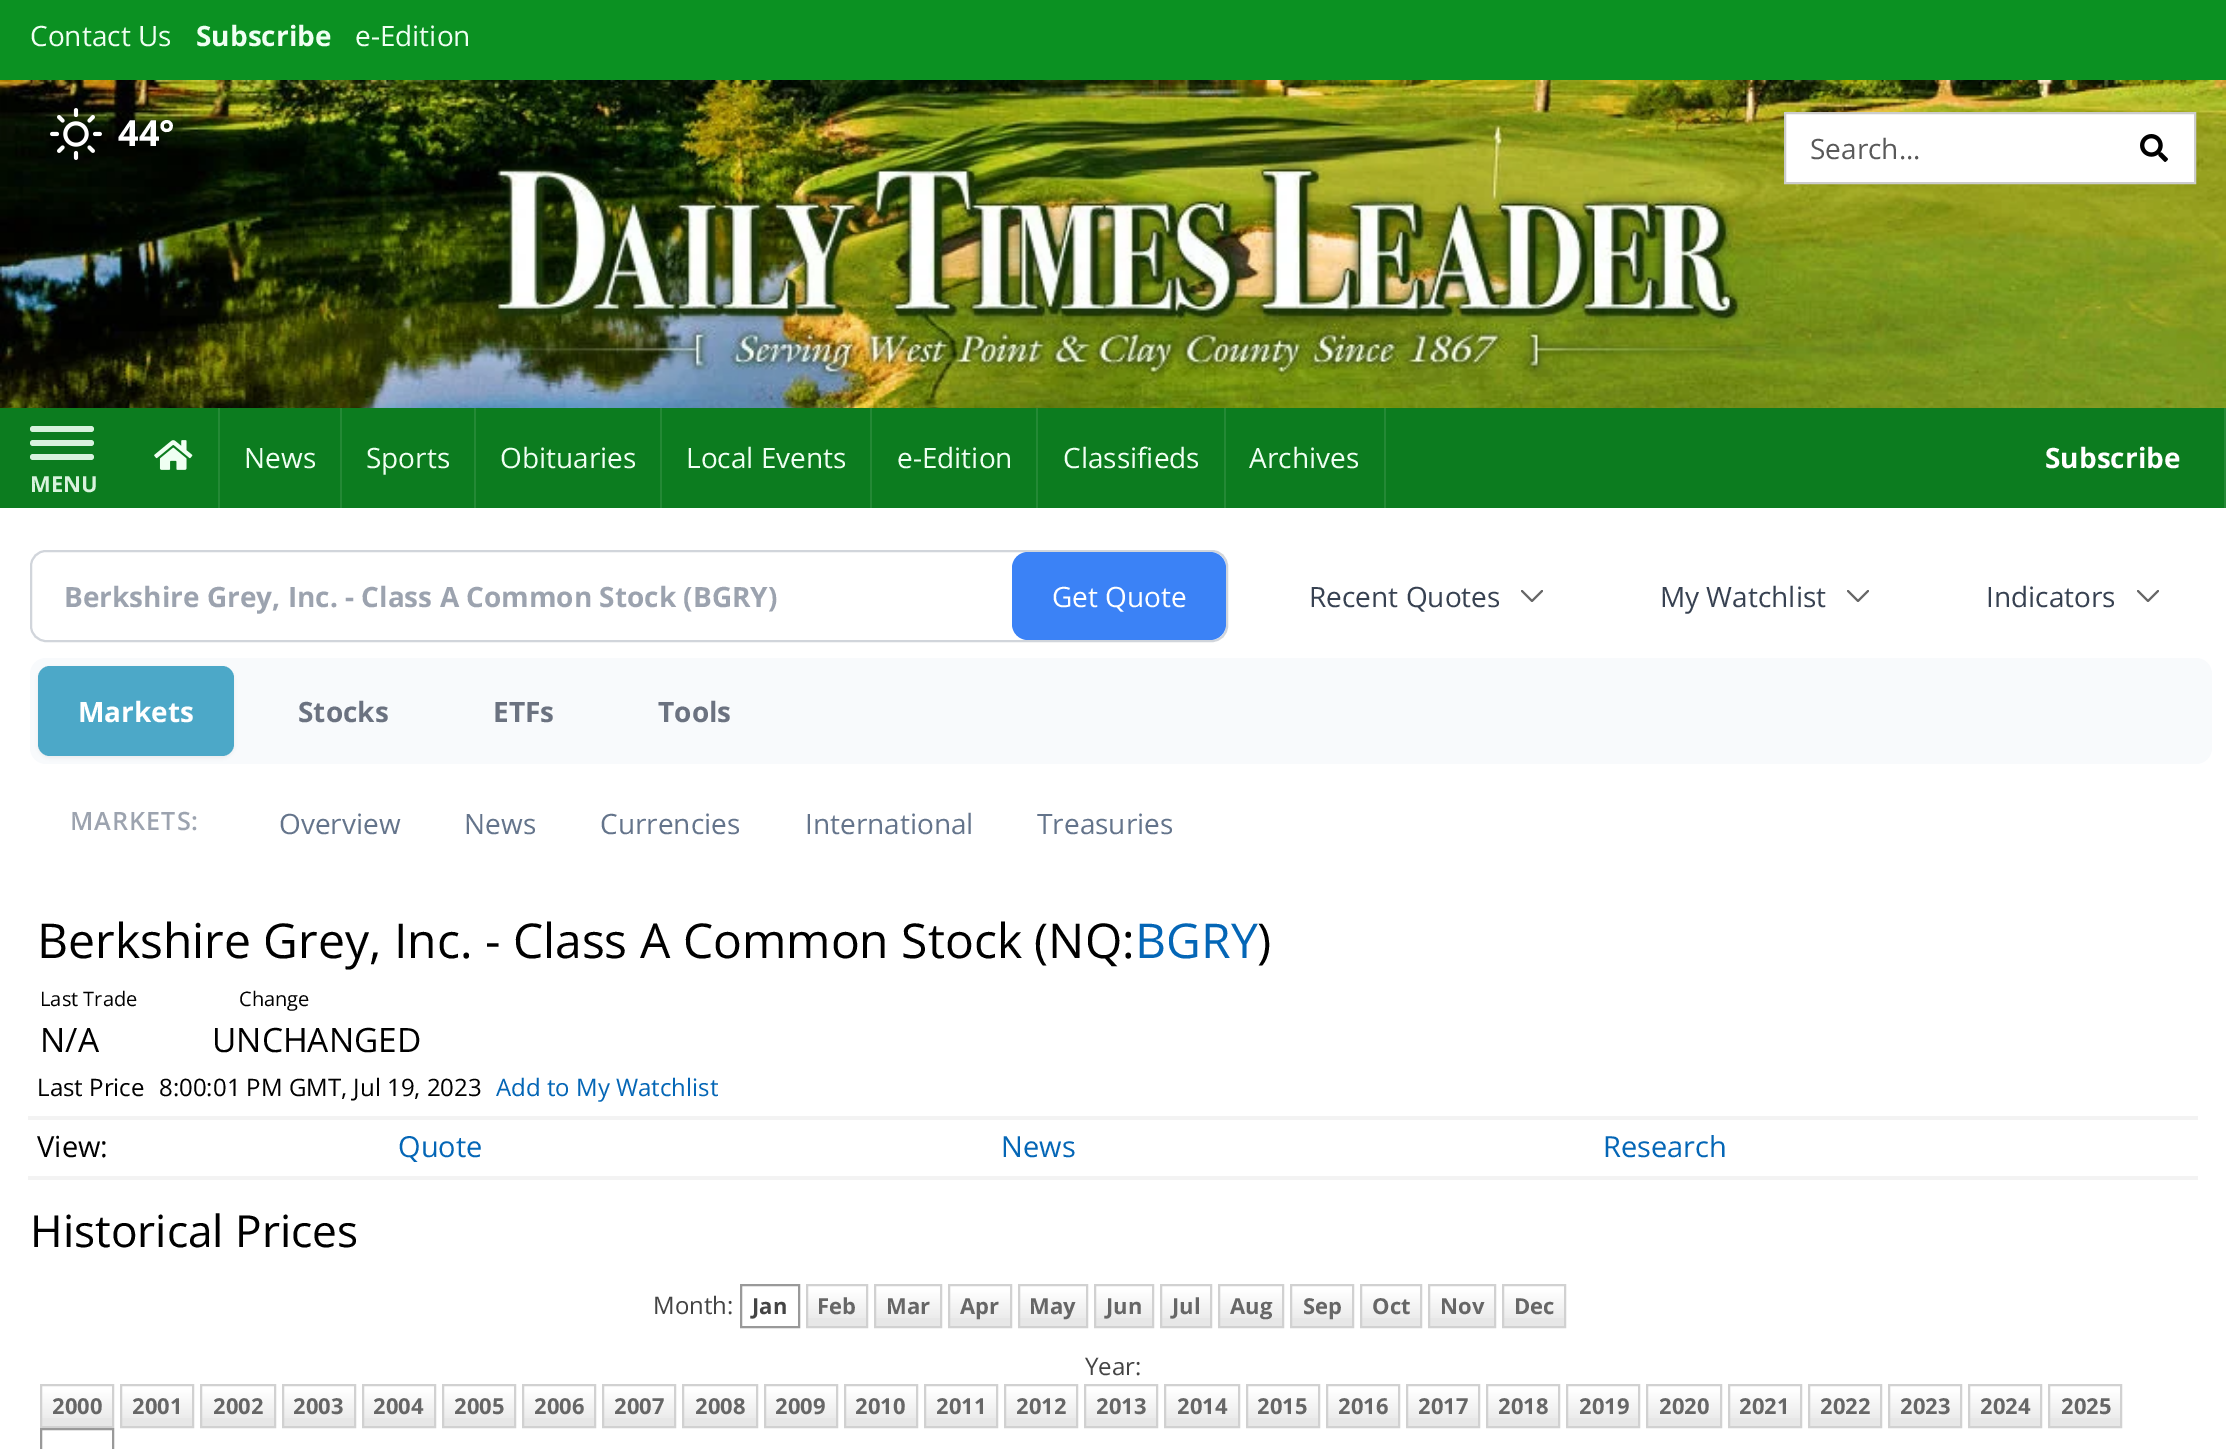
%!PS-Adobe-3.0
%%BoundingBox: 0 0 2226 1449
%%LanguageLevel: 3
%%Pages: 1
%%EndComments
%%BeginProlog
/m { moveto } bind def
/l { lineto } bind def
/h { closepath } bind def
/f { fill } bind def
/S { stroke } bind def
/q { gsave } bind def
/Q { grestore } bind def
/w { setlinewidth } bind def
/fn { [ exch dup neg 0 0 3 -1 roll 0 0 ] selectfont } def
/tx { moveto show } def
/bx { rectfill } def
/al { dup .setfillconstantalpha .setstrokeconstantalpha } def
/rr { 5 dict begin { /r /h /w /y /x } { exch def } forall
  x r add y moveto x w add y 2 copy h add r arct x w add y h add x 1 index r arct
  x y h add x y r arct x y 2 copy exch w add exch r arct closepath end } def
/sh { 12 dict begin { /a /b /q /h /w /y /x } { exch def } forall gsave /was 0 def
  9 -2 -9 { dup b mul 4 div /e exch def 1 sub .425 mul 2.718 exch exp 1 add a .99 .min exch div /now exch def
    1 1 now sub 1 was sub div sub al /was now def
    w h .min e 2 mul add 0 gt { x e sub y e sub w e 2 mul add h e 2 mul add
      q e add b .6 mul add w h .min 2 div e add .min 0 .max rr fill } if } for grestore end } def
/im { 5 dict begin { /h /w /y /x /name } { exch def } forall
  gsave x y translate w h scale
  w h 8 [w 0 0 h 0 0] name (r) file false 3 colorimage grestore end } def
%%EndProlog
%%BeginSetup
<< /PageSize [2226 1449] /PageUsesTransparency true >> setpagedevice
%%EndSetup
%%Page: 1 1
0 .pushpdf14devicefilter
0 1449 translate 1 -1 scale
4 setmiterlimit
1 setgray
0 0 2226 1449 bx
0.043 0.569 0.133 setrgbcolor
0 0 2226 80 bx
/OpenSans-Regular 28 fn
0.937 1 0.949 setrgbcolor
(Contact Us) 30 46 tx
/OpenSans-Bold 28 fn
(Subscribe) 196 46 tx
/OpenSans-Regular 28 fn
(e-Edition) 355 46 tx
(image0.raw) 0 80 2226 328 im
(image1.raw) 50 108 52 52 im
/OpenSans-Bold 36 fn
1 setgray
(44°) 118 146 tx
1785 113 m 2195 113 l 2195 183 l 1785 183 l h q f Q
0.8 setgray
2 w
S
/OpenSans-Regular 28 fn
0.349 setgray
(Search...) 1810 159 tx
(image2.raw) 2140 134 28 28 im
0.047 0.486 0.122 setrgbcolor
0 408 2224 100 bx
0.141 0.537 0.208 setrgbcolor
218 408 2 100 bx
(image3.raw) 154 440 39 30 im
340 408 2 100 bx
0.937 1 0.949 setrgbcolor
(News) 244 468 tx
0.141 0.537 0.208 setrgbcolor
474 408 2 100 bx
0.937 1 0.949 setrgbcolor
(Sports) 366 468 tx
0.141 0.537 0.208 setrgbcolor
660 408 2 100 bx
0.937 1 0.949 setrgbcolor
(Obituaries) 500 468 tx
0.141 0.537 0.208 setrgbcolor
870 408 2 100 bx
0.937 1 0.949 setrgbcolor
(Local Events) 686 468 tx
0.141 0.537 0.208 setrgbcolor
1036 408 2 100 bx
0.937 1 0.949 setrgbcolor
(e-Edition) 897 468 tx
0.141 0.537 0.208 setrgbcolor
1224 408 2 100 bx
0.937 1 0.949 setrgbcolor
(Classifieds) 1063 468 tx
0.141 0.537 0.208 setrgbcolor
1384 408 2 100 bx
0.937 1 0.949 setrgbcolor
(Archives) 1249 468 tx
0.141 0.537 0.208 setrgbcolor
2224 408 2 100 bx
/OpenSans-Bold 28 fn
1 setgray
(Subscribe) 2045 468 tx
0.847 0.949 0.867 setrgbcolor
30 426 64 6 3 rr f
30 440 64 6 3 rr f
30 454 64 6 3 rr f
/OpenSans-Bold 22 fn
(MENU) 30 492 tx
0.82 0.835 0.859 setrgbcolor
31 551 1196 90 15 rr S
/OpenSans-Bold 28 fn
0.612 0.639 0.686 setrgbcolor
(Berkshire Grey, Inc. - Class A Common Stock \(BGRY\)) 64 607 tx
0.231 0.51 0.965 setrgbcolor
1012 552 214 88 16 rr f
/OpenSans-Regular 28 fn
1 setgray
(Get Quote) 1052 607 tx
0.216 0.255 0.318 setrgbcolor
(Recent Quotes) 1309 607 tx
0.4 setgray
1 setlinecap
1 setlinejoin
1542 591 m 1532 601 l 1522 591 l S
0.216 0.255 0.318 setrgbcolor
(My Watchlist) 1660 607 tx
0.4 setgray
1868 591 m 1858 601 l 1848 591 l S
0.216 0.255 0.318 setrgbcolor
(Indicators) 1986 607 tx
0.4 setgray
2158 591 m 2148 601 l 2138 591 l S
0.973 0.98 0.988 setrgbcolor
30 658 2182 106 16 rr f
0 setgray
38 668 196 90 12 2 0.05 sh
0.298 0.659 0.784 setrgbcolor
38 666 196 90 12 rr f
/OpenSans-Bold 28 fn
1 setgray
(Markets) 78 722 tx
0.42 0.447 0.502 setrgbcolor
(Stocks) 298 722 tx
(ETFs) 493 722 tx
(Tools) 658 722 tx
/OpenSans-SemiBold 25.25 fn
0.612 0.639 0.686 setrgbcolor
70 830 m 1 0 (MARKETS:) ashow
/OpenSans-Regular 28 fn
0.392 0.455 0.545 setrgbcolor
(Overview) 279 834 tx
(News) 464 834 tx
(Currencies) 600 834 tx
(International) 805 834 tx
(Treasuries) 1037 834 tx
/OpenSans-Regular 48 fn
0 setgray
(Berkshire Grey, Inc. - Class A Common Stock \(NQ:) 37 958 tx
0.016 0.4 0.714 setrgbcolor
(BGRY) 1135 958 tx
0 setgray
(\)) 1257 958 tx
/OpenSans-Regular 20 fn
(Last Trade) 40 1006 tx
/OpenSans-Regular 33.5 fn
(N/A) 40 1052 tx
/OpenSans-Regular 20 fn
(Change) 239 1006 tx
/OpenSans-Regular 33.5 fn
(UNCHANGED) 212 1052 tx
/OpenSans-Regular 24 fn
(Last Price) 37 1096 tx
(8:00:01 PM GMT, Jul 19, 2023) 159 1096 tx
0.016 0.4 0.714 setrgbcolor
(Add to My Watchlist) 496 1096 tx
0.953 setgray
28 1116 2170 4 bx
28 1176 2170 4 bx
/OpenSans-Regular 29 fn
0 setgray
(View:) 37 1157 tx
0.016 0.4 0.714 setrgbcolor
(Quote) 398 1157 tx
(News) 1001 1157 tx
(Research) 1603 1157 tx
/OpenSans-Regular 44.25 fn
0 setgray
(Historical Prices) 30 1247 tx
/OpenSans-Regular 24 fn
0.267 setgray
(Month:) 653 1314 tx
0.6 setgray
0 setlinecap
0 setlinejoin
741 1285 58 42 rectstroke
/OpenSans-Bold 22 fn
0.267 setgray
(Jan) 752 1314 tx
0.906 setgray
808 1318 58 8 bx
(image4.raw) 808 1286 58 32 im
0.82 setgray
807 1285 60 42 rectstroke
0.4 setgray
(Feb) 817 1314 tx
0.906 setgray
876 1318 64 8 bx
(image5.raw) 876 1286 64 32 im
0.82 setgray
875 1285 66 42 rectstroke
0.4 setgray
(Mar) 886 1314 tx
0.906 setgray
950 1318 60 8 bx
(image6.raw) 950 1286 60 32 im
0.82 setgray
949 1285 62 42 rectstroke
0.4 setgray
(Apr) 960 1314 tx
0.906 setgray
1020 1318 66 8 bx
(image7.raw) 1020 1286 66 32 im
0.82 setgray
1019 1285 68 42 rectstroke
0.4 setgray
(May) 1029 1314 tx
0.906 setgray
1096 1318 56 8 bx
(image8.raw) 1096 1286 56 32 im
0.82 setgray
1095 1285 58 42 rectstroke
0.4 setgray
(Jun) 1106 1314 tx
0.906 setgray
1162 1318 48 8 bx
(image9.raw) 1162 1286 48 32 im
0.82 setgray
1161 1285 50 42 rectstroke
0.4 setgray
(Jul) 1172 1314 tx
0.906 setgray
1220 1318 62 8 bx
(image10.raw) 1220 1286 62 32 im
0.82 setgray
1219 1285 64 42 rectstroke
0.4 setgray
(Aug) 1230 1314 tx
0.906 setgray
1292 1318 60 8 bx
(image6.raw) 1292 1286 60 32 im
0.82 setgray
1291 1285 62 42 rectstroke
0.4 setgray
(Sep) 1303 1314 tx
0.906 setgray
1362 1318 58 8 bx
(image4.raw) 1362 1286 58 32 im
0.82 setgray
1361 1285 60 42 rectstroke
0.4 setgray
(Oct) 1372 1314 tx
0.906 setgray
1430 1318 64 8 bx
(image5.raw) 1430 1286 64 32 im
0.82 setgray
1429 1285 66 42 rectstroke
0.4 setgray
(Nov) 1440 1314 tx
0.906 setgray
1504 1318 60 8 bx
(image6.raw) 1504 1286 60 32 im
0.82 setgray
1503 1285 62 42 rectstroke
0.4 setgray
(Dec) 1514 1314 tx
/OpenSans-Regular 24 fn
0.267 setgray
(Year:) 1085 1375 tx
0.906 setgray
42 1418 70 8 bx
(image11.raw) 42 1386 70 32 im
0.82 setgray
41 1385 72 42 rectstroke
/OpenSans-Bold 22 fn
0.4 setgray
(2000) 52 1414 tx
0.906 setgray
122 1418 70 8 bx
(image11.raw) 122 1386 70 32 im
0.82 setgray
121 1385 72 42 rectstroke
0.4 setgray
(2001) 132 1414 tx
0.906 setgray
202 1418 72 8 bx
(image12.raw) 202 1386 72 32 im
0.82 setgray
201 1385 74 42 rectstroke
0.4 setgray
(2002) 213 1414 tx
0.906 setgray
284 1418 70 8 bx
(image11.raw) 284 1386 70 32 im
0.82 setgray
283 1385 72 42 rectstroke
0.4 setgray
(2003) 293 1414 tx
0.906 setgray
364 1418 70 8 bx
(image11.raw) 364 1386 70 32 im
0.82 setgray
363 1385 72 42 rectstroke
0.4 setgray
(2004) 373 1414 tx
0.906 setgray
444 1418 70 8 bx
(image11.raw) 444 1386 70 32 im
0.82 setgray
443 1385 72 42 rectstroke
0.4 setgray
(2005) 454 1414 tx
0.906 setgray
524 1418 70 8 bx
(image11.raw) 524 1386 70 32 im
0.82 setgray
523 1385 72 42 rectstroke
0.4 setgray
(2006) 534 1414 tx
0.906 setgray
604 1418 70 8 bx
(image11.raw) 604 1386 70 32 im
0.82 setgray
603 1385 72 42 rectstroke
0.4 setgray
(2007) 614 1414 tx
0.906 setgray
684 1418 72 8 bx
(image12.raw) 684 1386 72 32 im
0.82 setgray
683 1385 74 42 rectstroke
0.4 setgray
(2008) 695 1414 tx
0.906 setgray
766 1418 70 8 bx
(image11.raw) 766 1386 70 32 im
0.82 setgray
765 1385 72 42 rectstroke
0.4 setgray
(2009) 775 1414 tx
0.906 setgray
846 1418 70 8 bx
(image11.raw) 846 1386 70 32 im
0.82 setgray
845 1385 72 42 rectstroke
0.4 setgray
(2010) 855 1414 tx
0.906 setgray
926 1418 70 8 bx
(image11.raw) 926 1386 70 32 im
0.82 setgray
925 1385 72 42 rectstroke
0.4 setgray
(2011) 936 1414 tx
0.906 setgray
1006 1418 70 8 bx
(image11.raw) 1006 1386 70 32 im
0.82 setgray
1005 1385 72 42 rectstroke
0.4 setgray
(2012) 1016 1414 tx
0.906 setgray
1086 1418 70 8 bx
(image11.raw) 1086 1386 70 32 im
0.82 setgray
1085 1385 72 42 rectstroke
0.4 setgray
(2013) 1096 1414 tx
0.906 setgray
1166 1418 72 8 bx
(image12.raw) 1166 1386 72 32 im
0.82 setgray
1165 1385 74 42 rectstroke
0.4 setgray
(2014) 1177 1414 tx
0.906 setgray
1248 1418 70 8 bx
(image11.raw) 1248 1386 70 32 im
0.82 setgray
1247 1385 72 42 rectstroke
0.4 setgray
(2015) 1257 1414 tx
0.906 setgray
1328 1418 70 8 bx
(image11.raw) 1328 1386 70 32 im
0.82 setgray
1327 1385 72 42 rectstroke
0.4 setgray
(2016) 1338 1414 tx
0.906 setgray
1408 1418 70 8 bx
(image11.raw) 1408 1386 70 32 im
0.82 setgray
1407 1385 72 42 rectstroke
0.4 setgray
(2017) 1418 1414 tx
0.906 setgray
1488 1418 70 8 bx
(image11.raw) 1488 1386 70 32 im
0.82 setgray
1487 1385 72 42 rectstroke
0.4 setgray
(2018) 1498 1414 tx
0.906 setgray
1568 1418 70 8 bx
(image11.raw) 1568 1386 70 32 im
0.82 setgray
1567 1385 72 42 rectstroke
0.4 setgray
(2019) 1579 1414 tx
0.906 setgray
1648 1418 72 8 bx
(image12.raw) 1648 1386 72 32 im
0.82 setgray
1647 1385 74 42 rectstroke
0.4 setgray
(2020) 1659 1414 tx
0.906 setgray
1730 1418 70 8 bx
(image11.raw) 1730 1386 70 32 im
0.82 setgray
1729 1385 72 42 rectstroke
0.4 setgray
(2021) 1739 1414 tx
0.906 setgray
1810 1418 70 8 bx
(image11.raw) 1810 1386 70 32 im
0.82 setgray
1809 1385 72 42 rectstroke
0.4 setgray
(2022) 1820 1414 tx
0.906 setgray
1890 1418 70 8 bx
(image11.raw) 1890 1386 70 32 im
0.82 setgray
1889 1385 72 42 rectstroke
0.4 setgray
(2023) 1900 1414 tx
0.906 setgray
1970 1418 70 8 bx
(image11.raw) 1970 1386 70 32 im
0.82 setgray
1969 1385 72 42 rectstroke
0.4 setgray
(2024) 1980 1414 tx
0.906 setgray
2050 1418 70 8 bx
(image11.raw) 2050 1386 70 32 im
0.82 setgray
2049 1385 72 42 rectstroke
0.4 setgray
(2025) 2061 1414 tx
0.6 setgray
41 1429 72 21 rectstroke
.poppdf14devicefilter showpage
%%EOF
